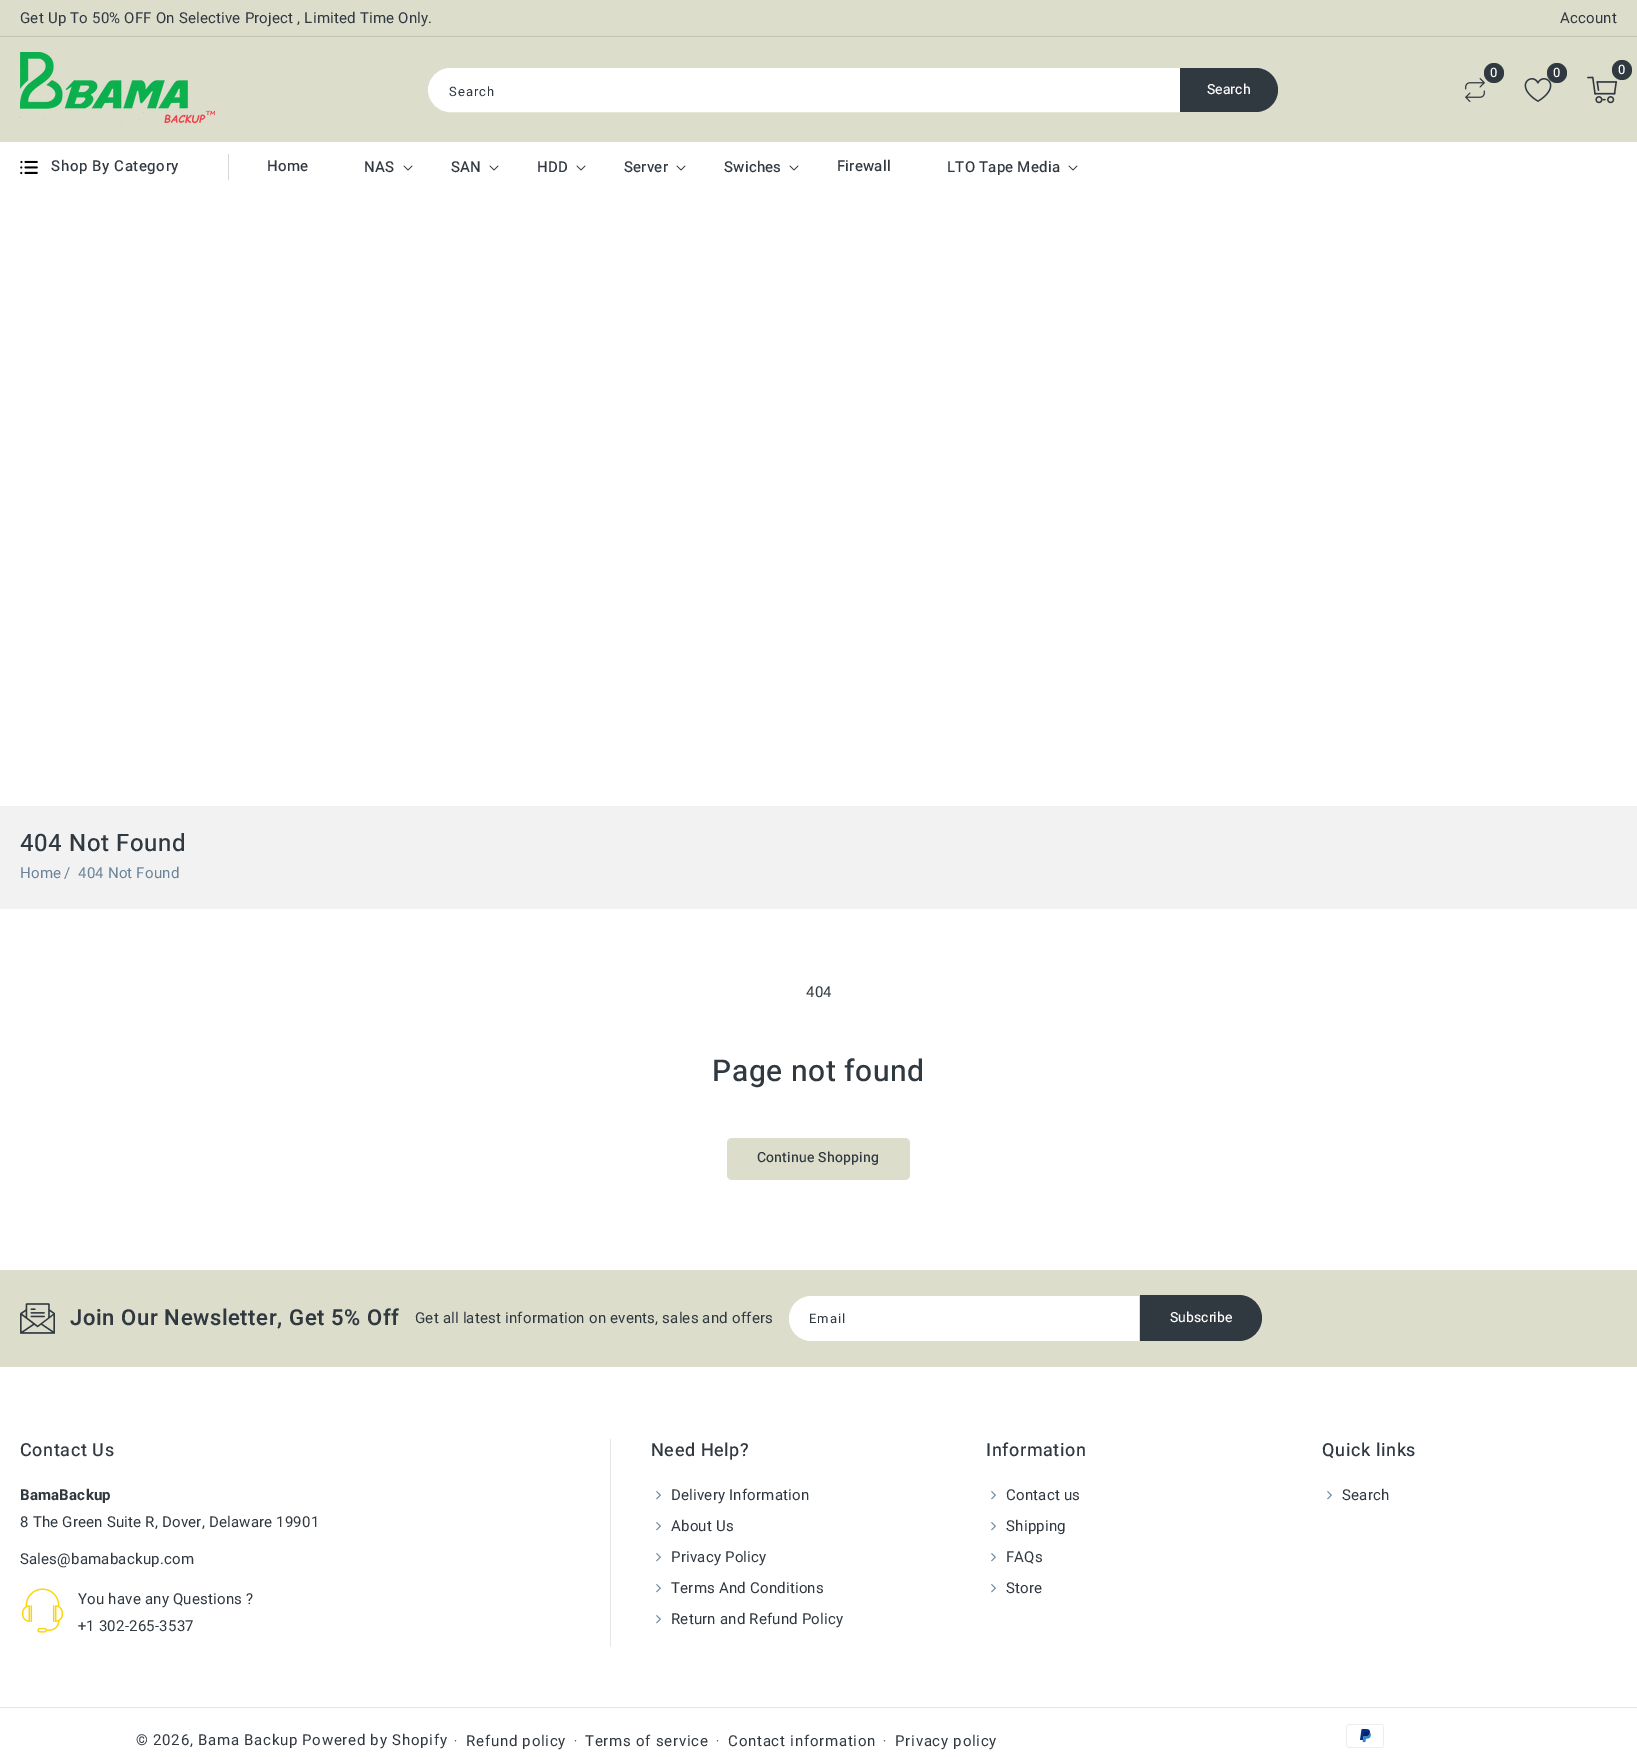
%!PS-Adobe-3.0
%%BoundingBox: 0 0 1637 1757
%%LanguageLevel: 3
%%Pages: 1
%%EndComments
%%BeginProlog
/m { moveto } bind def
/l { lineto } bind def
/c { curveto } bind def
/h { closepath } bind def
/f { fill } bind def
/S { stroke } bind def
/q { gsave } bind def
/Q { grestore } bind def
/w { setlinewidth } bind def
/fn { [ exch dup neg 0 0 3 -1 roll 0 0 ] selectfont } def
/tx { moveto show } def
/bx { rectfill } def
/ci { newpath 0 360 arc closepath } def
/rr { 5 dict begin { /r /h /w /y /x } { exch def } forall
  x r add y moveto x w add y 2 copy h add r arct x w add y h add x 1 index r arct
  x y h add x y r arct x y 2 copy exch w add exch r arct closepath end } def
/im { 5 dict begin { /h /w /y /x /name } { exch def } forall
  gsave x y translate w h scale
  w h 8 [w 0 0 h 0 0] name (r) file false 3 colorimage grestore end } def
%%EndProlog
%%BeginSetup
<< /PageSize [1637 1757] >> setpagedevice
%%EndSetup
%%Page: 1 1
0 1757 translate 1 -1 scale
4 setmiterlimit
1 setgray
0 0 1637 1757 bx
0.867 0.867 0.8 setrgbcolor
0 0 1637 36 bx
0.765 0.765 0.706 setrgbcolor
0 36 1637 1 bx
/Heebo-Regular 15 fn
0.188 0.22 0.251 setrgbcolor
20 23 m 0.2 0 (Get Up To 50% OFF On Selective Project , Limited Time Only.) ashow
1560 23 m 0.2 0 (Account) ashow
0.867 0.867 0.8 setrgbcolor
0 37 1637 105 bx
(image0.raw) 20 52 195 72 im
(image1.raw) 1465 78 20 24 im
0.188 0.22 0.251 setrgbcolor
1494 73 10 ci f
/Heebo-Medium 13 fn
1 setgray
1490 77 m 0.2 0 (0) ashow
(image2.raw) 1524 78 28 24 im
0.188 0.22 0.251 setrgbcolor
1557 73 10 ci f
1 setgray
1553 77 m 0.2 0 (0) ashow
(image3.raw) 1587 76 30 28 im
0.188 0.22 0.251 setrgbcolor
1622 70 10 ci f
1 setgray
1618 74 m 0.2 0 (0) ashow
450 69 m 1179 69 l 1179 111 l 450 111 l 438.5 111 429 101.5 429 90 c 429 78.5 438.5 69 450 69 c h q f Q
2 w
S
0.188 0.22 0.251 setrgbcolor
1180 68 m 1256 68 l 1268 68 1278 78 1278 90 c 1278 102 1268 112 1256 112 c 1180 112 l h f
/Heebo-Medium 14 fn
1 setgray
(Search) 1207 94 tx
/Heebo-Regular 13 fn
0.188 0.22 0.251 setrgbcolor
449 96 m 1 0 (Search) ashow
(image4.raw) 20 160 18 15 im
/Heebo-Medium 15 fn
51 171 m 0.6 0 (Shop By Category) ashow
0.839 setgray
228 154 1 26 bx
0.188 0.22 0.251 setrgbcolor
267 171 m 0.2 0 (Home) ashow
364 172 m 0.2 0 (NAS) ashow
(image5.raw) 403 165 10 6 im
451 172 m 0.2 0 (SAN) ashow
(image5.raw) 489 165 10 6 im
537 172 m 0.2 0 (HDD) ashow
(image5.raw) 576 165 10 6 im
624 172 m 0.2 0 (Server) ashow
(image5.raw) 676 165 10 6 im
724 172 m 0.2 0 (Swiches) ashow
(image5.raw) 789 165 10 6 im
837 171 m 0.2 0 (Firewall) ashow
947 172 m 0.2 0 (LTO Tape Media) ashow
(image5.raw) 1068 165 10 6 im
0.949 setgray
0 806 1637 103 bx
/Heebo-Medium 24 fn
0.188 0.22 0.251 setrgbcolor
20 851 m 0.6 0 (404 Not Found) ashow
/Heebo-Regular 15 fn
0.42 0.518 0.6 setrgbcolor
20 878 m 0.2 0 (Home) ashow
64 878 m 0.2 0 (/) ashow
78 878 m 0.2 0 (404 Not Found) ashow
0.188 0.22 0.251 setrgbcolor
806 997 m 0.2 0 (404) ashow
/Heebo-Medium 30 fn
712 1081 m 0.6 0 (Page not found) ashow
0.867 0.867 0.8 setrgbcolor
727 1138 183 42 5 rr f
/Heebo-Medium 14 fn
0.188 0.22 0.251 setrgbcolor
757 1162 m 0.2 0 (Continue Shopping) ashow
0.867 0.867 0.8 setrgbcolor
0 1270 1637 97 bx
(image6.raw) 20 1303 35 31 im
/Heebo-SemiBold 22 fn
0.188 0.22 0.251 setrgbcolor
70 1325 m 0.6 0 (Join Our Newsletter, Get 5% Off) ashow
/Heebo-Regular 15 fn
415 1323 m 0.2 0 (Get all latest information on events, sales and offers) ashow
1 setgray
811.5 1296 m 1139 1296 l 1139 1341 l 811.5 1341 l 799 1341 789 1331 789 1318.5 c 789 1306 799 1296 811.5 1296 c h f
0.188 0.22 0.251 setrgbcolor
1140 1295 m 1239 1295 l 1251.5 1295 1262 1305.5 1262 1318 c 1262 1330.5 1251.5 1341 1239 1341 c 1140 1341 l h f
/Heebo-Medium 14 fn
1 setgray
(Subscribe) 1170 1322 tx
/Heebo-Regular 13 fn
0.188 0.22 0.251 setrgbcolor
809 1323 m 1 0 (Email) ashow
0.898 setgray
610 1439 1 208 bx
/Heebo-Medium 18 fn
0.188 0.22 0.251 setrgbcolor
20 1456 m 0.6 0 (Contact Us) ashow
/Heebo-Bold 15 fn
20 1500 m 0.2 0 (BamaBackup) ashow
/Heebo-Regular 15 fn
20 1527 m 0.2 0 (8 The Green Suite R, Dover, Delaware 19901) ashow
20 1564 m 0.2 0 (Sales@bamabackup.com) ashow
(image7.raw) 22 1588 41 45 im
78 1604 m 0.2 0 (You have any Questions ?) ashow
78 1631 m 0.2 0 (+1 302-265-3537) ashow
/Heebo-Medium 18 fn
651 1456 m 0.6 0 (Need Help?) ashow
(image8.raw) 656 1491 5 9 im
/Heebo-Regular 15 fn
671 1500 m 0.2 0 (Delivery Information) ashow
(image8.raw) 656 1522 5 9 im
671 1531 m 0.2 0 (About Us) ashow
(image8.raw) 656 1553 5 9 im
671 1562 m 0.2 0 (Privacy Policy) ashow
(image8.raw) 656 1584 5 9 im
671 1593 m 0.2 0 (Terms And Conditions) ashow
(image8.raw) 656 1615 5 9 im
671 1624 m 0.2 0 (Return and Refund Policy) ashow
/Heebo-Medium 18 fn
986 1456 m 0.6 0 (Information) ashow
(image8.raw) 991 1491 5 9 im
/Heebo-Regular 15 fn
1006 1500 m 0.2 0 (Contact us) ashow
(image8.raw) 991 1522 5 9 im
1006 1531 m 0.2 0 (Shipping) ashow
(image8.raw) 991 1553 5 9 im
1006 1562 m 0.2 0 (FAQs) ashow
(image8.raw) 991 1584 5 9 im
1006 1593 m 0.2 0 (Store) ashow
/Heebo-Medium 18 fn
1322 1456 m 0.6 0 (Quick links) ashow
(image8.raw) 1327 1491 5 9 im
/Heebo-Regular 15 fn
1342 1500 m 0.2 0 (Search) ashow
0.898 setgray
0 1707 1637 1 bx
0.188 0.22 0.251 setrgbcolor
136 1745 m 0.75 0 (© 2026, Bama Backup) ashow
302 1745 m 0.75 0 (Powered by Shopify) ashow
/Heebo-Regular 12 fn
454 1745 m 0.75 0 (·) ashow
/Heebo-Regular 15 fn
466 1746 m 0.75 0 (Refund policy) ashow
/Heebo-Regular 12 fn
574 1745 m 0.75 0 (·) ashow
/Heebo-Regular 15 fn
585 1746 m 0.75 0 (Terms of service) ashow
/Heebo-Regular 12 fn
716 1745 m 0.75 0 (·) ashow
/Heebo-Regular 15 fn
728 1746 m 0.75 0 (Contact information) ashow
/Heebo-Regular 12 fn
883 1745 m 0.75 0 (·) ashow
/Heebo-Regular 15 fn
895 1746 m 0.75 0 (Privacy policy) ashow
(image9.raw) 1346 1724 38 24 im
showpage
%%EOF
